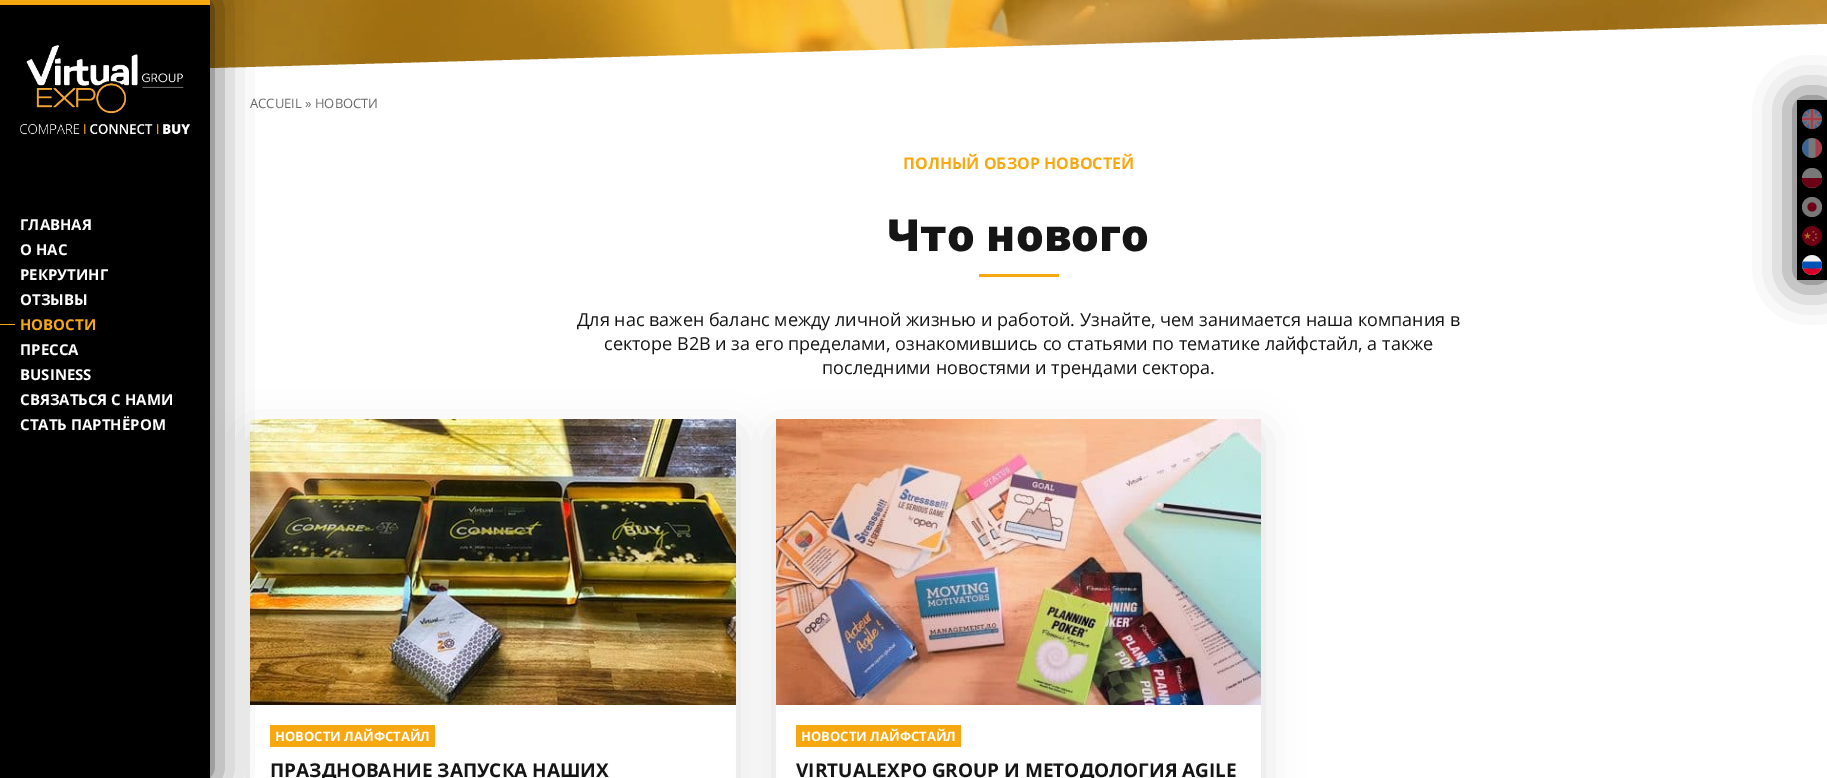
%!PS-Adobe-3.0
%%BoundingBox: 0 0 1827 778
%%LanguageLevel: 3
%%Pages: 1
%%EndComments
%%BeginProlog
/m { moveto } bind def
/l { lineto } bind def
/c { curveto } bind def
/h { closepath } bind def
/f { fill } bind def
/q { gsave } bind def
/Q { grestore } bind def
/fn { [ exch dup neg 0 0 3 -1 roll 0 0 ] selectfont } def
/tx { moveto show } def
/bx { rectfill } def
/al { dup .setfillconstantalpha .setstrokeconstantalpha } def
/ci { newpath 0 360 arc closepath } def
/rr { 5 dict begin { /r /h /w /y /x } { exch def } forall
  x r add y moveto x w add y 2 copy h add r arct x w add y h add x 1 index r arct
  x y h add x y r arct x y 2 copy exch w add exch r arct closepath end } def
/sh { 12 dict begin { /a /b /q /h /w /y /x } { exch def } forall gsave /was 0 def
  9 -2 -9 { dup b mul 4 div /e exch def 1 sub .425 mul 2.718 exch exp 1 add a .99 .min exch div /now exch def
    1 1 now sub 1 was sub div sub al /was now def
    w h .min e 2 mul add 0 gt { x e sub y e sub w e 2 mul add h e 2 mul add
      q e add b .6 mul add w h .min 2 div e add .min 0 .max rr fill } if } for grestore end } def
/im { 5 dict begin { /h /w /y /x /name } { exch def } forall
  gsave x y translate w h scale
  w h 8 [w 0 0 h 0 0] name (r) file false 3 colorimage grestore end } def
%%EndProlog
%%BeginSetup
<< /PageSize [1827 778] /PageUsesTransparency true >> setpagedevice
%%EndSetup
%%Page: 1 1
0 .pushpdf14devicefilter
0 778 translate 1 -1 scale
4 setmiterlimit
1 setgray
0 0 1827 778 bx
(image1.raw) 210 0 1617 69 im
1827 24 m 1827 74 l 0 74 l h f
q
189 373 m 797 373 l 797 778 l 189 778 l h 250 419 m 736 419 l 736 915 l 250 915 l h eoclip newpath
0 setgray
250 434 486 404 0 20 0.13 sh
Q
q
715 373 m 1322 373 l 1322 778 l 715 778 l h 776 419 m 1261 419 l 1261 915 l 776 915 l h eoclip newpath
0 setgray
776 434 485 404 0 20 0.13 sh
Q
(image6.raw) 250 419 486 286 im
0.969 0.659 0.063 setrgbcolor
270 725 165 22 bx
0 setgray
0 0 210 778 0 20 0.75 sh
0 5 210 773 bx
0.969 0.659 0.063 setrgbcolor
0 0 210 5 bx
(image0.raw) 20 45 170 90 im
/OpenSans-Bold 15 fn
1 setgray
(ГЛАВНАЯ) 20 230 tx
(О НАС) 20 255 tx
(РЕКРУТИНГ) 20 280 tx
(ОТЗЫВЫ) 20 305 tx
0.969 0.659 0.063 setrgbcolor
0 324 15 1 bx
(НОВОСТИ) 20 330 tx
1 setgray
(ПРЕССА) 20 355 tx
(BUSINESS) 20 380 tx
(СВЯЗАТЬСЯ С НАМИ) 20 405 tx
(СТАТЬ ПАРТНЁРОМ) 20 430 tx
/OpenSans-Regular 13 fn
0.4 setgray
(ACCUEIL » НОВОСТИ) 250 108 tx
0 setgray
1797 100 30 180 0 20 0.75 sh
1797 100 30 180 bx
(image2.raw) 1802 109 20 20 im
(image3.raw) 1802 138 20 20 im
0.471 setgray
1812 178 10 ci f
0.424 0 0.078 setrgbcolor
1822 178 m 1822 191 1802 191 1802 178 c f
0.471 setgray
1812 207 10 ci f
0.424 0 0.078 setrgbcolor
1812 207 4.5 ci f
(image4.raw) 1802 226 20 20 im
(image5.raw) 1802 255 20 20 im
/OpenSans-Bold 16 fn
0.969 0.659 0.063 setrgbcolor
(ПОЛНЫЙ ОБЗОР НОВОСТЕЙ) 903 169 tx
/OpenSans-ExtraBold 44 fn
0.082 setgray
(Что нового) 887 251 tx
0.969 0.659 0.063 setrgbcolor
979 274 80 3 bx
/OpenSans-Regular 18 fn
0.082 setgray
(Для нас важен баланс между личной жизнью и работой. Узнайте, чем занимается наша компания в) 577 326 tx
(секторе B2B и за его пределами, ознакомившись со статьями по тематике лайфстайл, а также) 604 350 tx
(последними новостями и трендами сектора.) 822 374 tx
/OpenSans-Bold 13 fn
1 setgray
(НОВОСТИ ЛАЙФСТАЙЛ) 275 741 tx
/OpenSans-Bold 19 fn
0.082 setgray
(ПРАЗДНОВАНИЕ ЗАПУСКА НАШИХ) 270 777 tx
(image7.raw) 776 419 485 286 im
0.969 0.659 0.063 setrgbcolor
796 725 165 22 bx
/OpenSans-Bold 13 fn
1 setgray
(НОВОСТИ ЛАЙФСТАЙЛ) 801 741 tx
/OpenSans-Bold 19 fn
0.082 setgray
(VIRTUALEXPO GROUP И МЕТОДОЛОГИЯ AGILE) 796 777 tx
.poppdf14devicefilter showpage
%%EOF
